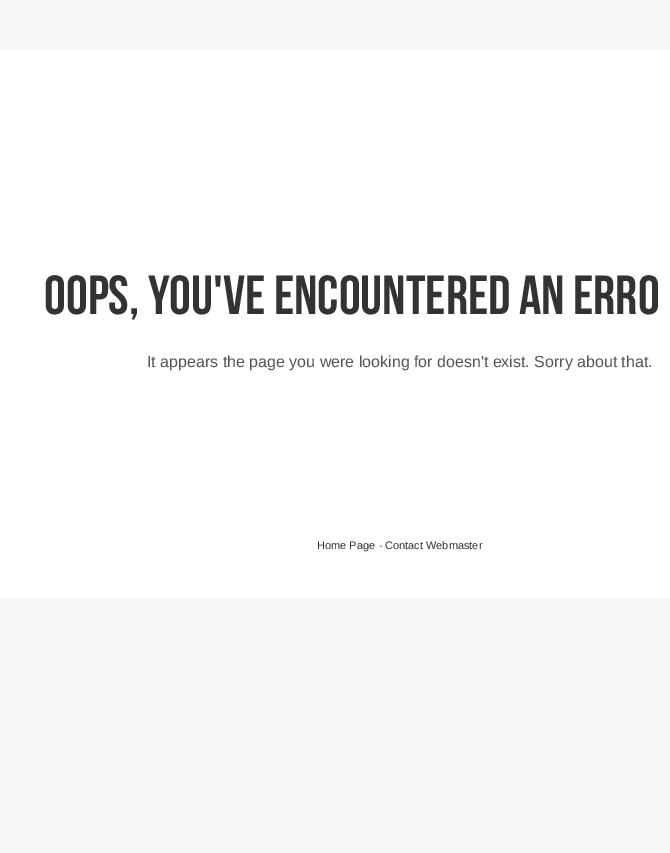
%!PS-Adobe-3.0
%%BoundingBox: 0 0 670 853
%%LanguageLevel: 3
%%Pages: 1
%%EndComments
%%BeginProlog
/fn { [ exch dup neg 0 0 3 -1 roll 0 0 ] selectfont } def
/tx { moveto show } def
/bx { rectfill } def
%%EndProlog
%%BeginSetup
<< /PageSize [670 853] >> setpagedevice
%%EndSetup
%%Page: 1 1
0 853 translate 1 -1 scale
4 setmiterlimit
0.965 setgray
0 0 670 853 bx
1 setgray
0 50 670 548 bx
/BebasNeue-Regular 55 fn
0.2 setgray
(Oops, you've encountered an erro) 44 314 tx
/LiberationSans-Regular 16 fn
0.333 setgray
(It appears the page you were looking for doesn't exist. Sorry about that.) 147 367 tx
/LiberationSans-Regular 11 fn
0.2 setgray
(Home Page) 317 549 tx
0.333 setgray
(-) 379 549 tx
0.2 setgray
(Contact Webmaster) 385 549 tx
showpage
%%EOF
